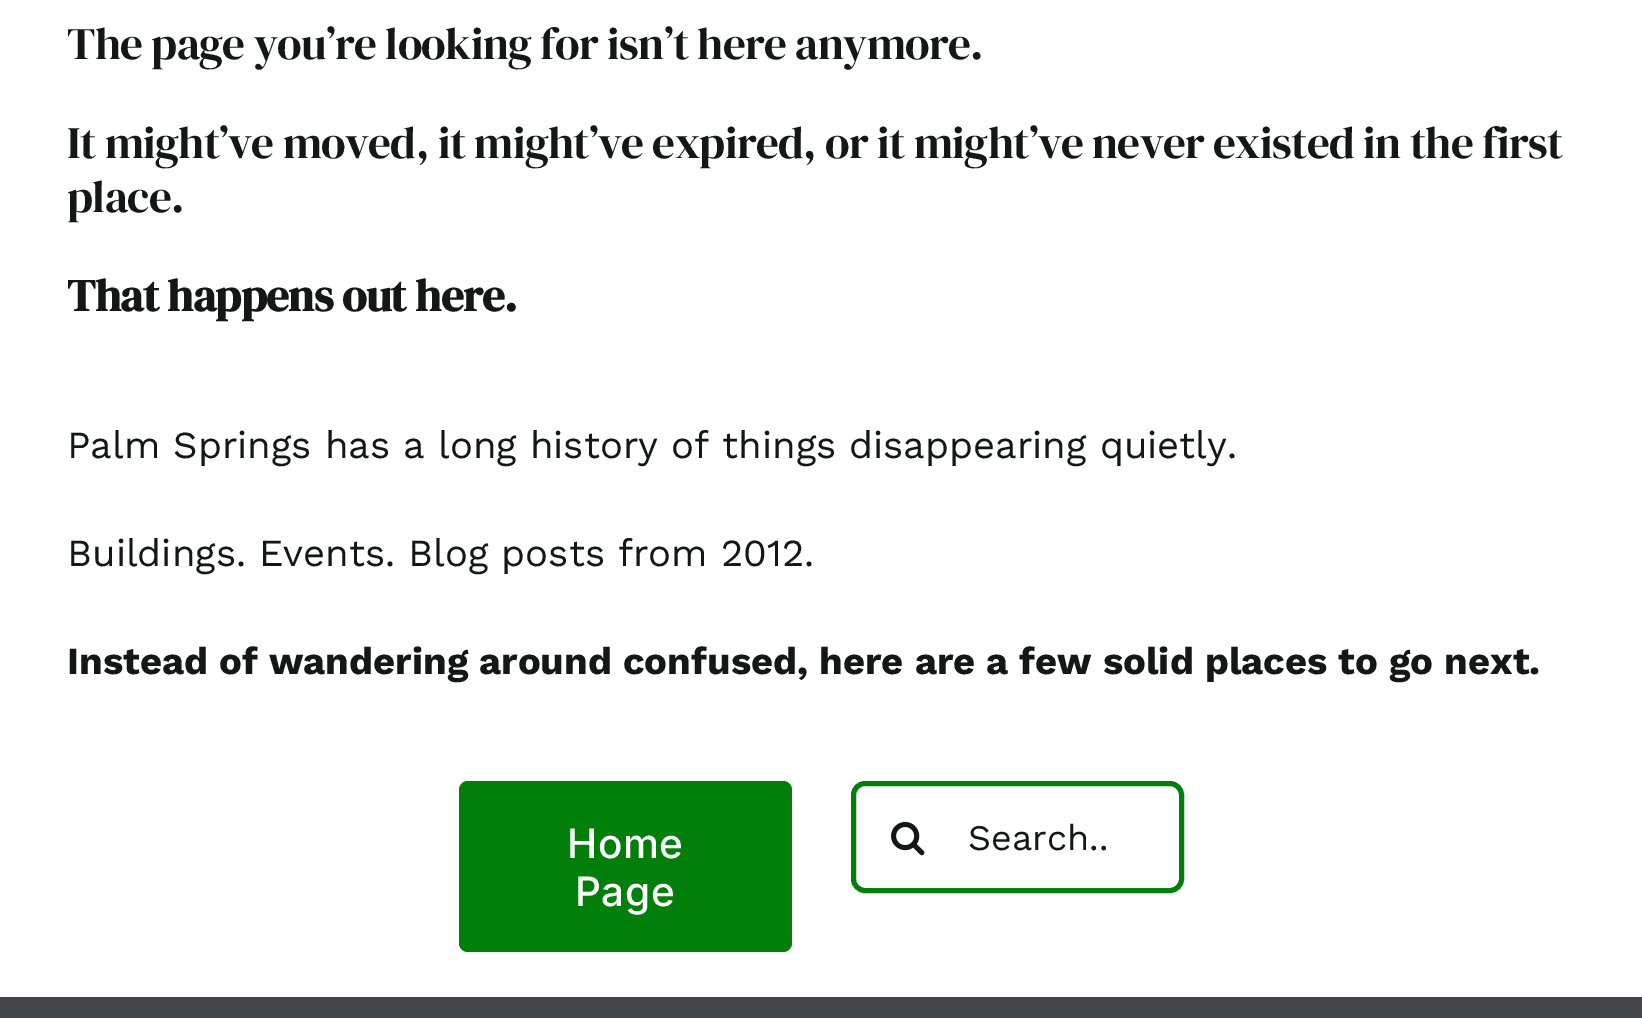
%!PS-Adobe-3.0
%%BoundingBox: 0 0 1642 1018
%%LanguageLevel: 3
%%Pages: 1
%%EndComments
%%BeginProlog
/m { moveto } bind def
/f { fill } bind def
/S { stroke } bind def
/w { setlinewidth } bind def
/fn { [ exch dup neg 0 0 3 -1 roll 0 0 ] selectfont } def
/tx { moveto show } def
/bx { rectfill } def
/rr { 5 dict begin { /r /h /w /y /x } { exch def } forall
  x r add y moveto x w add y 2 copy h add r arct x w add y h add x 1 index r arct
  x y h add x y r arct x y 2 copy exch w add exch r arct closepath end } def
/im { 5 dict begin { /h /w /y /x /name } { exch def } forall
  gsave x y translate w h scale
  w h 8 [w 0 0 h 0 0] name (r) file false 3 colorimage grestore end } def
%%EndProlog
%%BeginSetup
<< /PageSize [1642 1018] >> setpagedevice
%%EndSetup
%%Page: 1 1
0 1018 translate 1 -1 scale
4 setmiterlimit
1 setgray
0 0 1642 1018 bx
/DMSerifDisplay-Regular 45 fn
0.078 0.086 0.09 setrgbcolor
67 59 m -0.67 0 (The page you’re looking for isn’t here anymore.) ashow
67 158 m -0.67 0 (It might’ve moved, it might’ve expired, or it might’ve never existed in the first) ashow
67 212 m -0.67 0 (place.) ashow
/DMSerifDisplay-Bold 45 fn
67 311 m -0.67 0 (That happens out here.) ashow
/WorkSans-Regular 38.25 fn
(Palm Springs has a long history of things disappearing quietly.) 67 458 tx
(Buildings. Events. Blog posts from 2012.) 67 566 tx
/WorkSans-Bold 38.25 fn
(Instead of wandering around confused, here are a few solid places to go next.) 67 674 tx
0.008 0.498 0.043 setrgbcolor
459 781 333 171 9 rr f
/Inter-Medium 40.5 fn
1 setgray
567 858 m 0.5 0 (Home) ashow
575 906 m 0.5 0 (Page) ashow
0.008 0.498 0.043 setrgbcolor
5 w
853.5 783.5 328 107 11.5 rr S
(image0.raw) 891 821 34 35 im
/WorkSans-Regular 36 fn
0.078 0.086 0.09 setrgbcolor
(Search..) 968 850 tx
0.263 0.271 0.286 setrgbcolor
0 997 1642 21 bx
showpage
%%EOF
